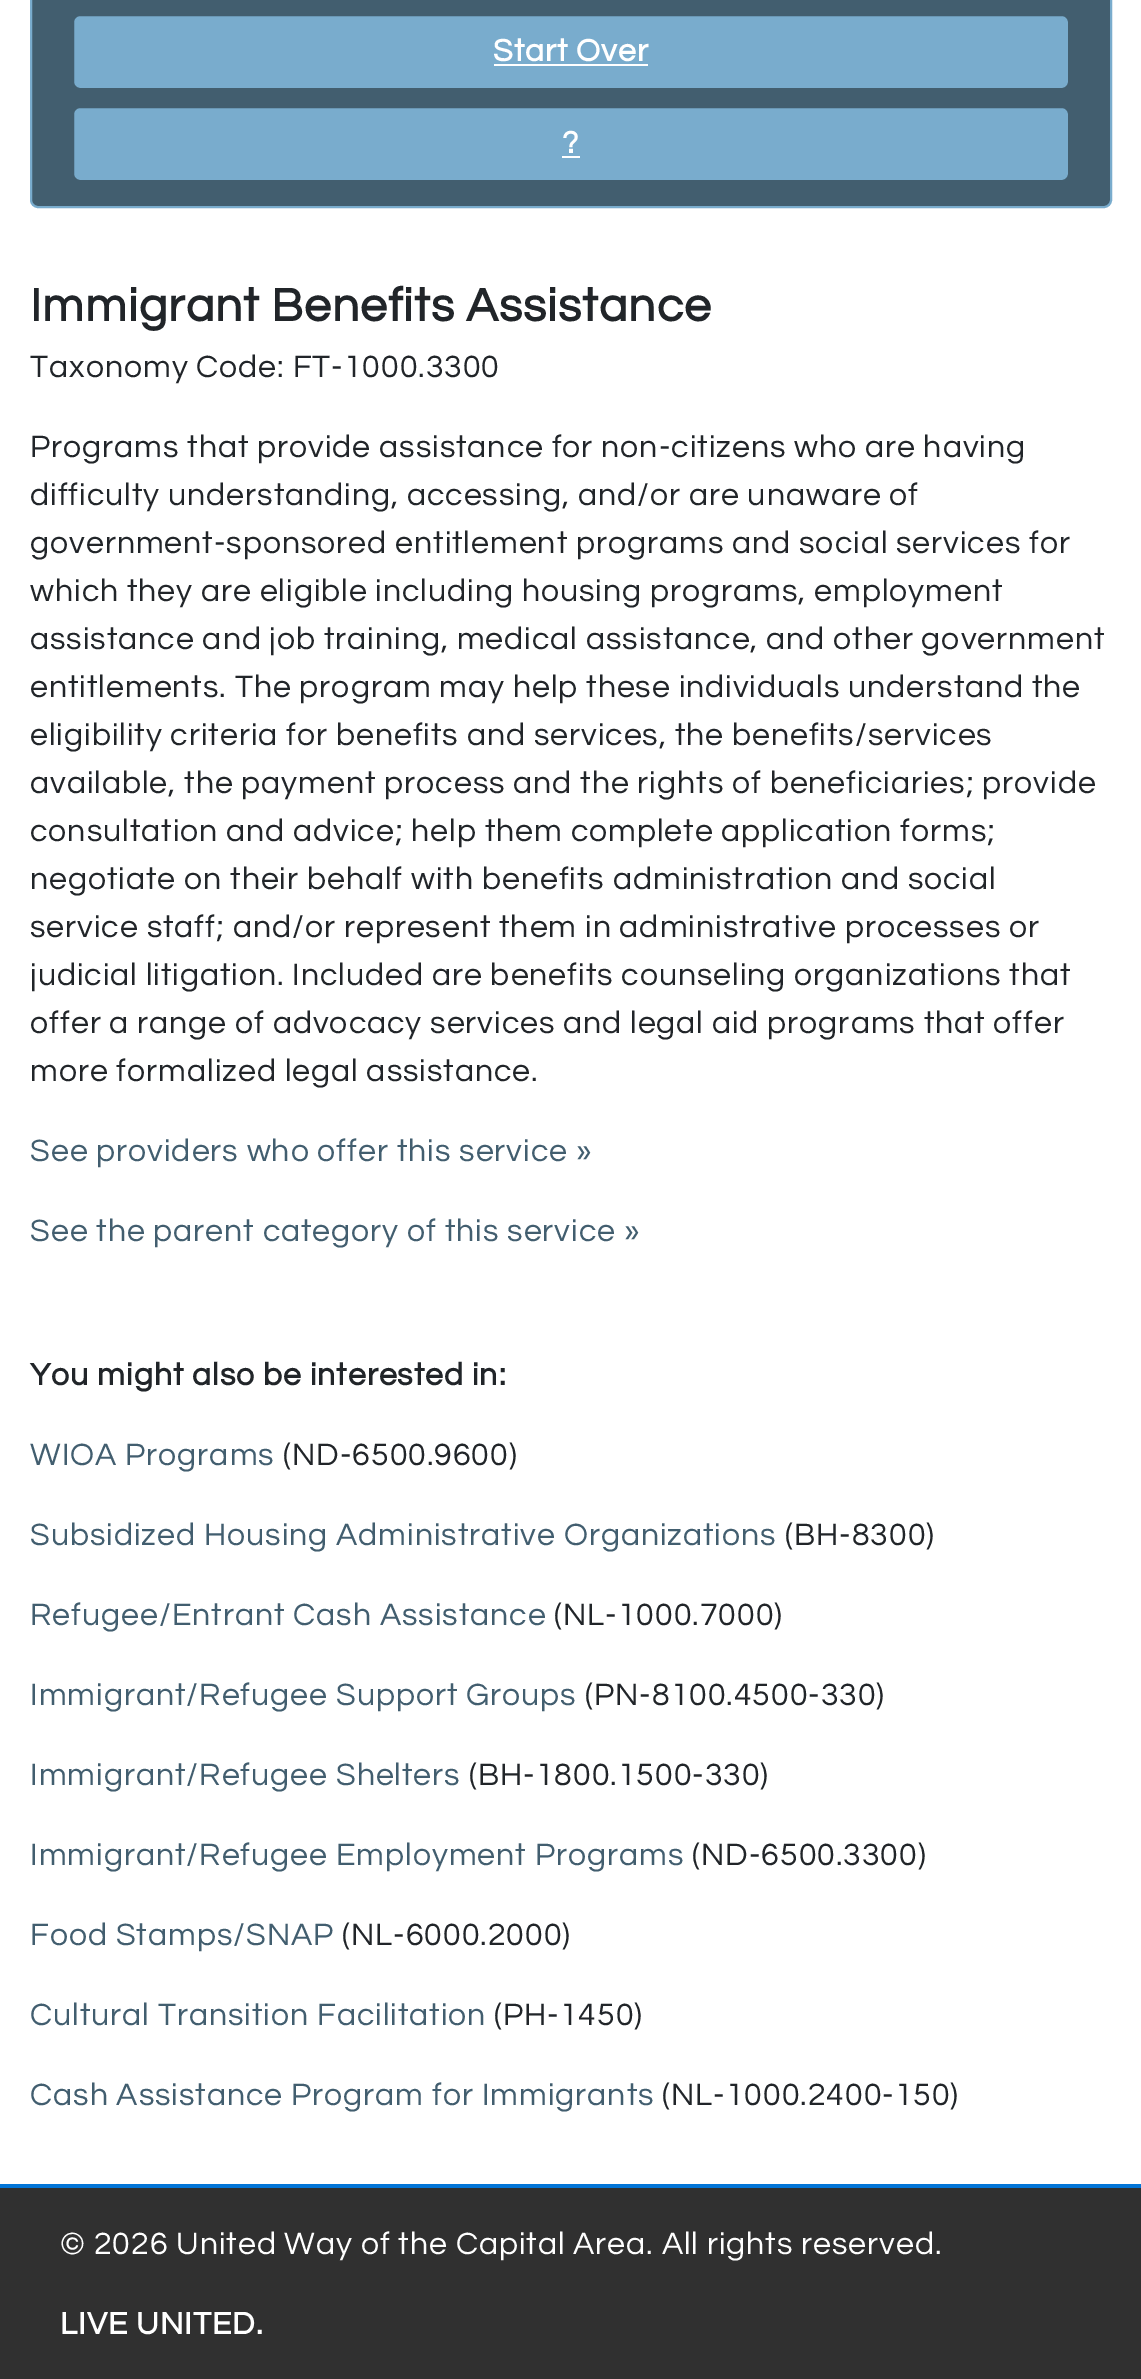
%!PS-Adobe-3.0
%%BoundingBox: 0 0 1141 2379
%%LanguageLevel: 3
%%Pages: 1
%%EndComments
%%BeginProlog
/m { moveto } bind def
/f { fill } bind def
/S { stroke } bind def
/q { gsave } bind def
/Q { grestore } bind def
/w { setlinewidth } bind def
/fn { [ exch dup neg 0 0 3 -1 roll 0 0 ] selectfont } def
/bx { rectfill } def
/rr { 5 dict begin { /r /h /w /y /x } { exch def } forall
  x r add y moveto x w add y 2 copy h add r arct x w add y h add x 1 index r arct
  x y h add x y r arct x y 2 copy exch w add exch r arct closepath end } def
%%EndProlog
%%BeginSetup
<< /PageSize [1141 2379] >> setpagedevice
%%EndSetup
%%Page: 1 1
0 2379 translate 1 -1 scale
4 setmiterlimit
1 setgray
0 0 1141 2379 bx
0.259 0.369 0.435 setrgbcolor
31 -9 1080 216 7 rr q f Q
0.475 0.675 0.804 setrgbcolor
2 w
S
73 15 996 74 7 rr q f Q
0.259 0.369 0.435 setrgbcolor
S
/Questrial-Bold 32 fn
1 setgray
493 61 m 1 0 (Start Over) ashow
494 64 154 2 bx
0.475 0.675 0.804 setrgbcolor
73 107 996 74 7 rr q f Q
0.259 0.369 0.435 setrgbcolor
S
1 setgray
562 153 m 1 0 (?) ashow
562 156 18 2 bx
/Questrial-Bold 48 fn
0.129 0.145 0.161 setrgbcolor
30 321 m 1 0 (Immigrant Benefits Assistance) ashow
/Questrial-Regular 32 fn
30 377 m 1 0 (Taxonomy Code: FT-1000.3300) ashow
30 457 m 1 0 (Programs that provide assistance for non-citizens who are having) ashow
30 505 m 1 0 (difficulty understanding, accessing, and/or are unaware of) ashow
30 553 m 1 0 (government-sponsored entitlement programs and social services for) ashow
30 601 m 1 0 (which they are eligible including housing programs, employment) ashow
30 649 m 1 0 (assistance and job training, medical assistance, and other government) ashow
30 697 m 1 0 (entitlements. The program may help these individuals understand the) ashow
30 745 m 1 0 (eligibility criteria for benefits and services, the benefits/services) ashow
30 793 m 1 0 (available, the payment process and the rights of beneficiaries; provide) ashow
30 841 m 1 0 (consultation and advice; help them complete application forms;) ashow
30 889 m 1 0 (negotiate on their behalf with benefits administration and social) ashow
30 937 m 1 0 (service staff; and/or represent them in administrative processes or) ashow
30 985 m 1 0 (judicial litigation. Included are benefits counseling organizations that) ashow
30 1033 m 1 0 (offer a range of advocacy services and legal aid programs that offer) ashow
30 1081 m 1 0 (more formalized legal assistance.) ashow
0.259 0.369 0.435 setrgbcolor
30 1161 m 1 0 (See providers who offer this service ») ashow
30 1241 m 1 0 (See the parent category of this service ») ashow
/Questrial-Bold 32 fn
0.129 0.145 0.161 setrgbcolor
30 1385 m 1 0 (You might also be interested in:) ashow
/Questrial-Regular 32 fn
0.259 0.369 0.435 setrgbcolor
30 1465 m 1 0 (WIOA Programs) ashow
0.129 0.145 0.161 setrgbcolor
283 1465 m 1 0 (\(ND-6500.9600\)) ashow
0.259 0.369 0.435 setrgbcolor
30 1545 m 1 0 (Subsidized Housing Administrative Organizations) ashow
0.129 0.145 0.161 setrgbcolor
785 1545 m 1 0 (\(BH-8300\)) ashow
0.259 0.369 0.435 setrgbcolor
30 1625 m 1 0 (Refugee/Entrant Cash Assistance) ashow
0.129 0.145 0.161 setrgbcolor
554 1625 m 1 0 (\(NL-1000.7000\)) ashow
0.259 0.369 0.435 setrgbcolor
30 1705 m 1 0 (Immigrant/Refugee Support Groups) ashow
0.129 0.145 0.161 setrgbcolor
585 1705 m 1 0 (\(PN-8100.4500-330\)) ashow
0.259 0.369 0.435 setrgbcolor
30 1785 m 1 0 (Immigrant/Refugee Shelters) ashow
0.129 0.145 0.161 setrgbcolor
469 1785 m 1 0 (\(BH-1800.1500-330\)) ashow
0.259 0.369 0.435 setrgbcolor
30 1865 m 1 0 (Immigrant/Refugee Employment Programs) ashow
0.129 0.145 0.161 setrgbcolor
692 1865 m 1 0 (\(ND-6500.3300\)) ashow
0.259 0.369 0.435 setrgbcolor
30 1945 m 1 0 (Food Stamps/SNAP) ashow
0.129 0.145 0.161 setrgbcolor
342 1945 m 1 0 (\(NL-6000.2000\)) ashow
0.259 0.369 0.435 setrgbcolor
30 2025 m 1 0 (Cultural Transition Facilitation) ashow
0.129 0.145 0.161 setrgbcolor
494 2025 m 1 0 (\(PH-1450\)) ashow
0.259 0.369 0.435 setrgbcolor
30 2105 m 1 0 (Cash Assistance Program for Immigrants) ashow
0.129 0.145 0.161 setrgbcolor
662 2105 m 1 0 (\(NL-1000.2400-150\)) ashow
0.188 setgray
0 2188 1141 191 bx
0.008 0.459 0.847 setrgbcolor
0 2184 1141 4 bx
1 setgray
60 2254 m 1 0 (© 2026 United Way of the Capital Area. All rights reserved.) ashow
/Questrial-Bold 32 fn
60 2334 m 1 0 (LIVE UNITED.) ashow
showpage
%%EOF
